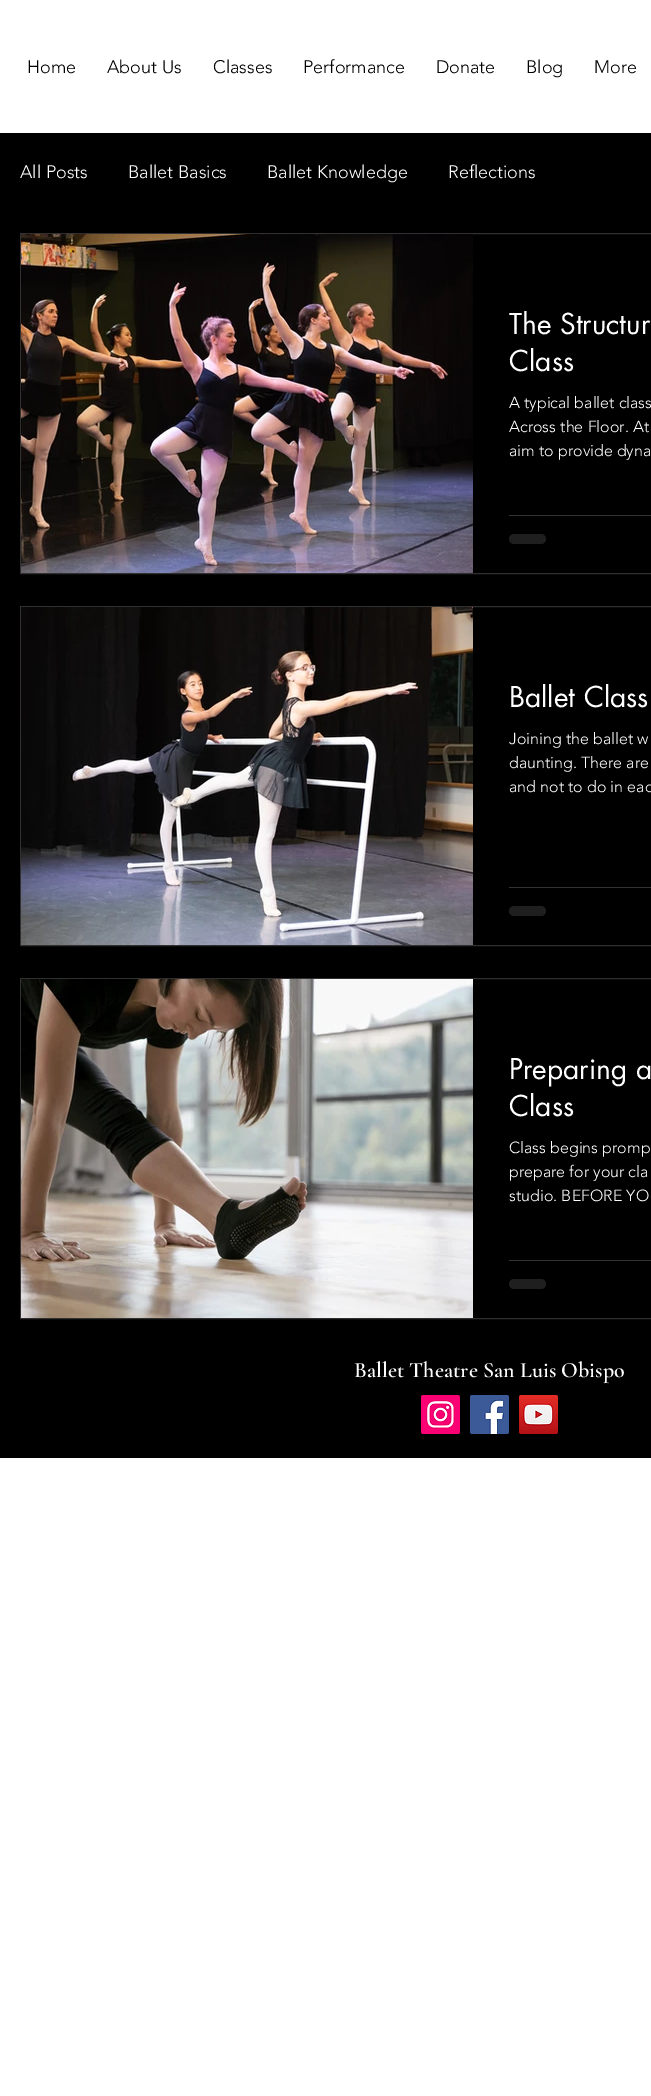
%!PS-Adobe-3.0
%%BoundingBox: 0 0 651 2096
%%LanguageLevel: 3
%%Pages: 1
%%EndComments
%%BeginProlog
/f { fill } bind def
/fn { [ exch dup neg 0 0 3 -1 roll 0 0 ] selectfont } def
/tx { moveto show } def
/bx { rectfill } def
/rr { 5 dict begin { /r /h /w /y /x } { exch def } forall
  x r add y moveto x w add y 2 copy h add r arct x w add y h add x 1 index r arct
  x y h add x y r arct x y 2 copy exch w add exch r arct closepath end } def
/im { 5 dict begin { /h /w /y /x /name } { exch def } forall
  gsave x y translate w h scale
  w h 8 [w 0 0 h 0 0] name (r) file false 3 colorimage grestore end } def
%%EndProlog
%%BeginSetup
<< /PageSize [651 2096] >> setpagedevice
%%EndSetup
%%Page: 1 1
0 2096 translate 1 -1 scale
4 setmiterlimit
1 setgray
0 0 651 2096 bx
/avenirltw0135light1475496-Light 18 fn
0 setgray
(Home) 27 73 tx
(About Us) 107 73 tx
(Classes) 213 73 tx
(Performance) 303 73 tx
(Donate) 436 73 tx
(Blog) 526 73 tx
(More) 594 73 tx
0 133 651 1325 bx
1 setgray
(All Posts) 20 178 tx
(Ballet Basics) 128 178 tx
(Ballet Knowledge) 267 178 tx
(Reflections) 448 178 tx
0.188 setgray
20.5 233.5 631 340 rectstroke
(image0.raw) 21 234 452 339 im
/futura-Regular 28 fn
1 setgray
(The Structur) 509 334 tx
(Class) 509 371 tx
/avenirltw0135light1475496-Light 16 fn
(A typical ballet class) 509 408 tx
(Across the Floor. At) 509 432 tx
(aim to provide dyna) 509 456 tx
0.2 setgray
509 515 142 1 bx
0.122 setgray
509 534 37 10 5 rr f
0.188 setgray
20.5 606.5 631 339 rectstroke
(image1.raw) 21 607 452 338 im
/futura-Regular 28 fn
1 setgray
(Ballet Class) 509 707 tx
/avenirltw0135light1475496-Light 16 fn
(Joining the ballet w) 509 744 tx
(daunting. There are) 509 768 tx
(and not to do in eac) 509 792 tx
0.2 setgray
509 887 142 1 bx
0.122 setgray
509 906 37 10 5 rr f
0.188 setgray
20.5 978.5 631 340 rectstroke
(image2.raw) 21 979 452 339 im
/futura-Regular 28 fn
1 setgray
(Preparing a) 509 1079 tx
(Class) 509 1116 tx
/avenirltw0135light1475496-Light 16 fn
(Class begins promp) 509 1153 tx
(prepare for your cla) 509 1177 tx
(studio. BEFORE YO) 509 1201 tx
0.2 setgray
509 1260 142 1 bx
0.122 setgray
509 1279 37 10 5 rr f
/CormorantGaramond-SemiBold 22 fn
1 setgray
(Ballet Theatre San Luis Obispo) 354 1377 tx
(image3.raw) 421 1395 39 39 im
(image4.raw) 470 1395 39 39 im
(image5.raw) 519 1395 39 39 im
showpage
%%EOF
